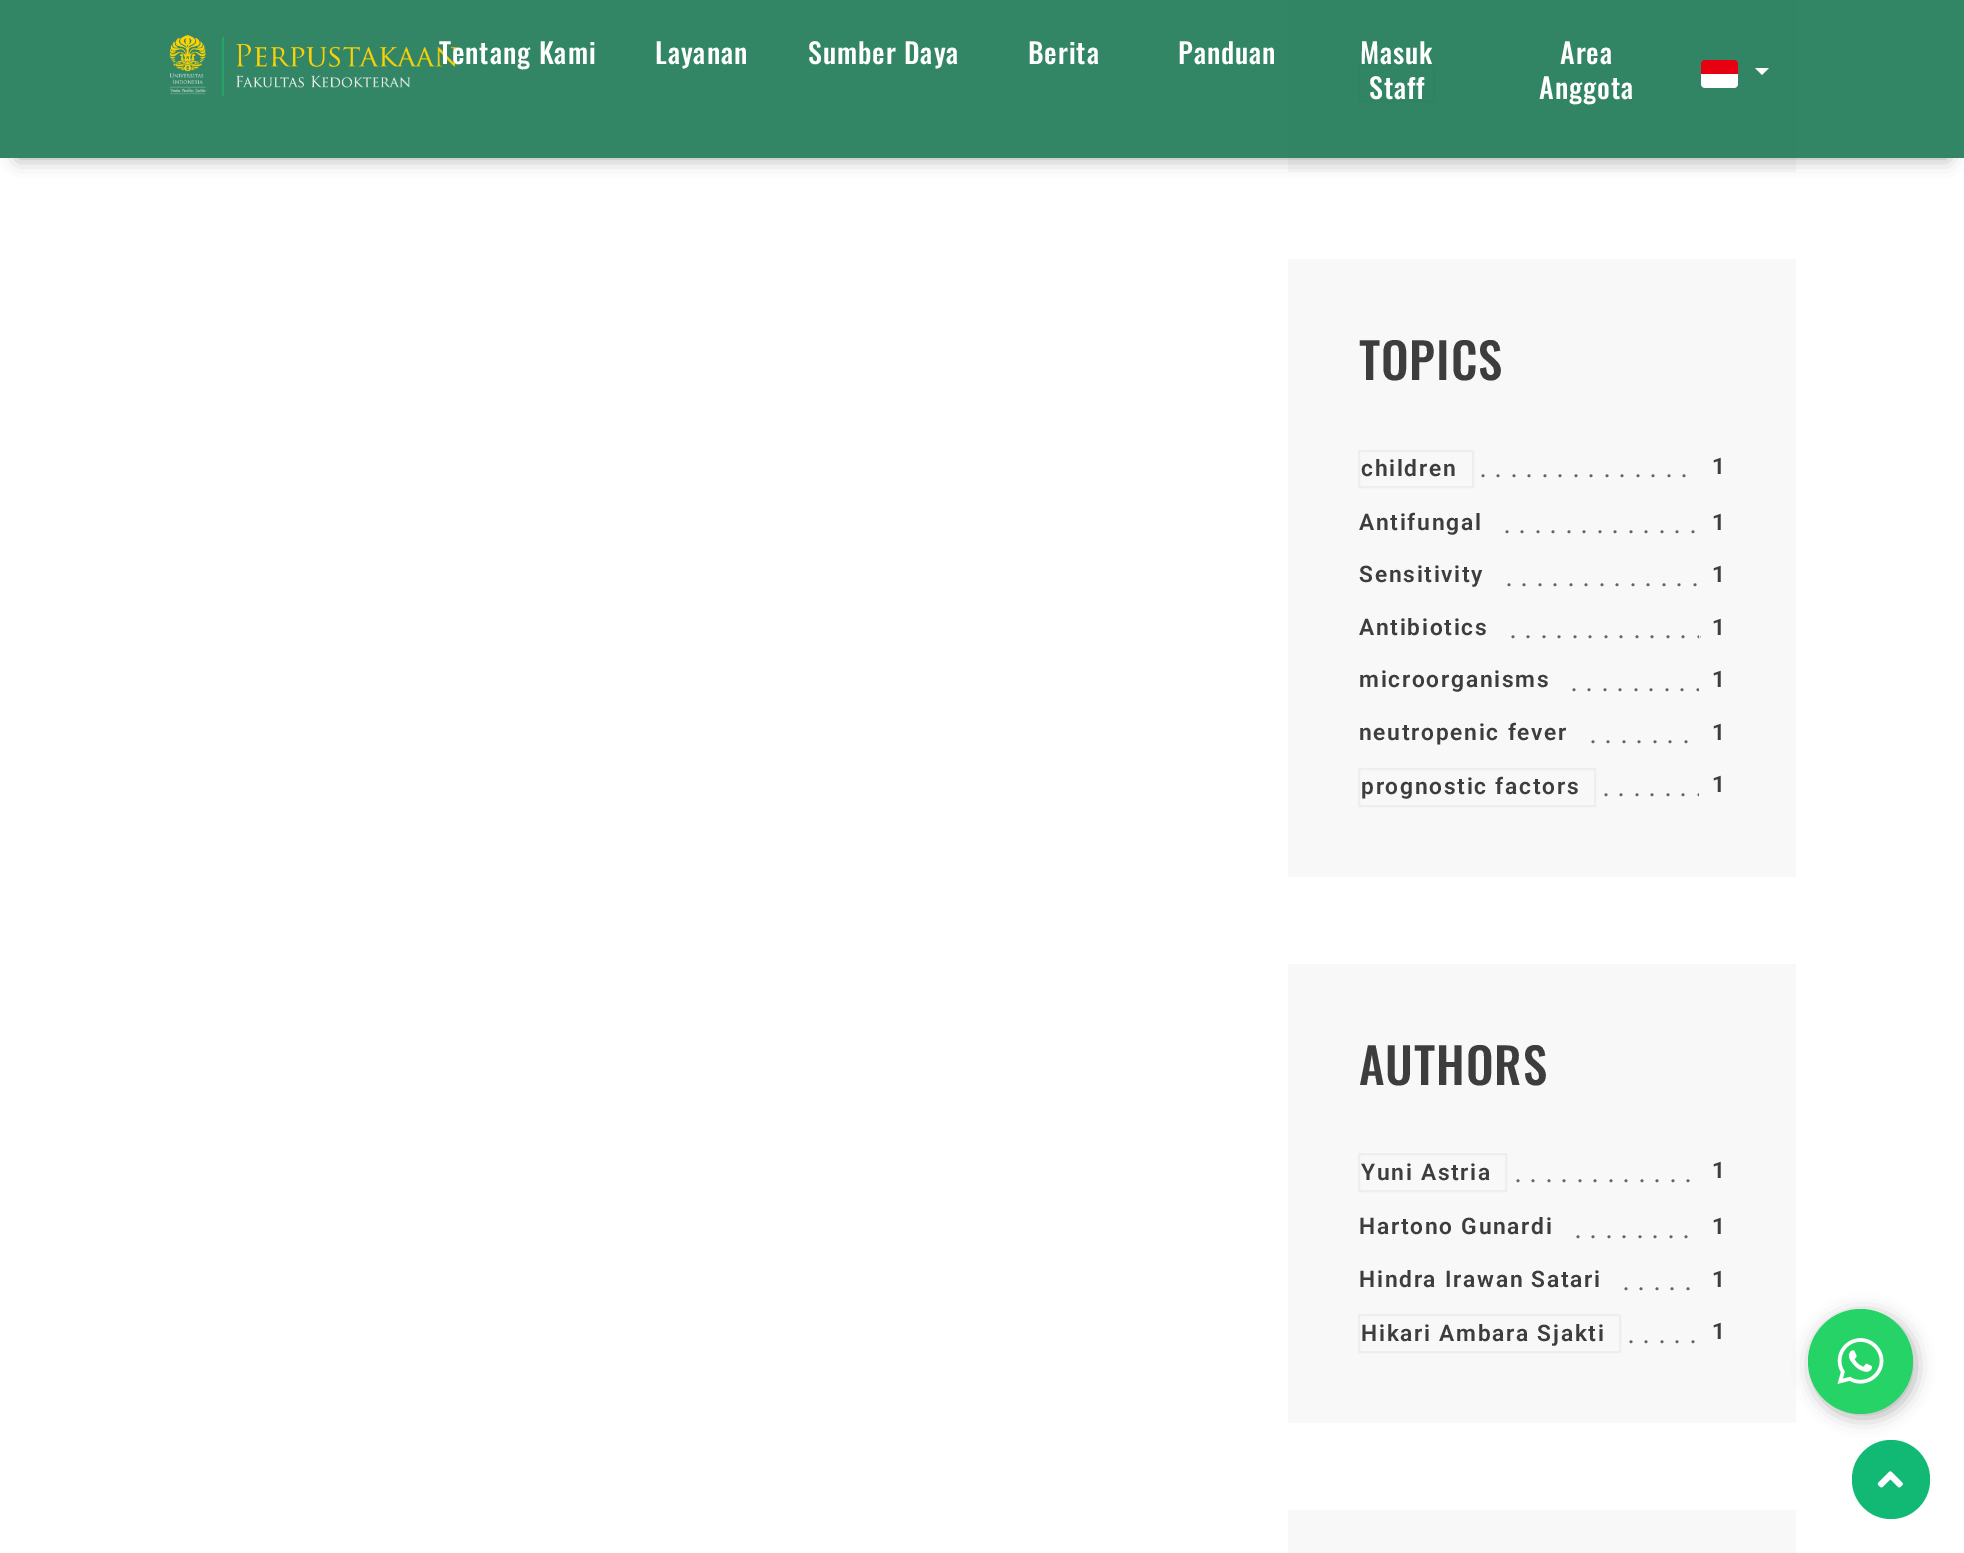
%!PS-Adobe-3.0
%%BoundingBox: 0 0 1964 1553
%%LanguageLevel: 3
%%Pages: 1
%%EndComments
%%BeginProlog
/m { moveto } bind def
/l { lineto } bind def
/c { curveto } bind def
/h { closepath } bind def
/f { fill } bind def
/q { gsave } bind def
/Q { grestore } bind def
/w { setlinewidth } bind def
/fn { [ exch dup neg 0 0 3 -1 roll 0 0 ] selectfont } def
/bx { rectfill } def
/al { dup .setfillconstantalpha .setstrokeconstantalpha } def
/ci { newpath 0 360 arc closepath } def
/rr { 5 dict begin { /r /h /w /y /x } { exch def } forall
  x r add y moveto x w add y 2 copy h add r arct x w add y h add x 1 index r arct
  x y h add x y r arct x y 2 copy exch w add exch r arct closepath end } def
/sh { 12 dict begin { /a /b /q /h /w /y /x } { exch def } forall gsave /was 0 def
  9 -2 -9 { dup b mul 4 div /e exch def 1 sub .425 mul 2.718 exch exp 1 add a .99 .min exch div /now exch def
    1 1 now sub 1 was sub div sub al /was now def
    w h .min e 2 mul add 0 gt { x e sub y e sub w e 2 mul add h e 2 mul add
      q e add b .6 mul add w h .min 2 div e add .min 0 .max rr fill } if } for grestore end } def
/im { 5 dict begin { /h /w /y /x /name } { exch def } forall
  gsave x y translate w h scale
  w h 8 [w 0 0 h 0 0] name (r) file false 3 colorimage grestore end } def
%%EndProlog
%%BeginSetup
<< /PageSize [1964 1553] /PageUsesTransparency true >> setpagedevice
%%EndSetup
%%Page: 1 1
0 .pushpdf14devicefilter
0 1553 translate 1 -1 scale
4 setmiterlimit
1 setgray
0 0 1964 1553 bx
0.973 setgray
1288 964 508 459 bx
1288 259 508 618 bx
1288 0 508 172 bx
0.933 setgray
2 w
1359 64 75 37 rectstroke
q
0 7 m 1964 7 l 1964 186 l 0 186 l h 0 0 m 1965 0 l 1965 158 l 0 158 l h eoclip newpath
0 setgray
18 35 1930 123 0 9 0.35 sh
Q
0.8 al
0 0.408 0.247 setrgbcolor
0 0 1964 158 bx
1 al
(image0.raw) 169 35 288 62 im
/Oswald-Medium 28 fn
1 setgray
439 64 m 0.9 0 (Tentang Kami) ashow
655 64 m 0.9 0 (Layanan) ashow
808 64 m 0.9 0 (Sumber Daya) ashow
1028 64 m 0.9 0 (Berita) ashow
1178 64 m 0.9 0 (Panduan) ashow
1360 64 m 0.9 0 (Masuk) ashow
1369 99 m 0.9 0 (Staff) ashow
1560 64 m 0.9 0 (Area) ashow
1539 99 m 0.9 0 (Anggota) ashow
0.906 0 0.067 setrgbcolor
1705 60 m 1734 60 l 1736 60 1738 62 1738 64 c 1738 74 l 1701 74 l 1701 64 l 1701 62 1703 60 1705 60 c h f
1 setgray
1701 74 m 1738 74 l 1738 84 l 1738 86 1736 88 1734 88 c 1705 88 l 1703 88 1701 86 1701 84 c h f
1755 68 m 1769 68 l 1762 75 l h f
/Oswald-Medium 49 fn
0.239 setgray
1359 380 m 0.9 0 (TOPICS) ashow
0.933 setgray
1359 451 114 36 rectstroke
/Roboto-SemiBold 22.75 fn
0.239 setgray
1361 476 m 1.75 0 (children) ashow
/Roboto-Medium 22.75 fn
0.392 setgray
1480 477 m 1.75 0 (. . . . . . . . . . . . . .) ashow
/Roboto-SemiBold 22.75 fn
0.239 setgray
1712 474 m 1.75 0 (1) ashow
1359 530 m 1.75 0 (Antifungal) ashow
1712 530 m 1.75 0 (1) ashow
/Roboto-Medium 22.75 fn
0.392 setgray
1504 533 m 1.75 0 (. . . . . . . . . . . . .) ashow
/Roboto-SemiBold 22.75 fn
0.239 setgray
1359 582 m 1.75 0 (Sensitivity) ashow
1712 582 m 1.75 0 (1) ashow
/Roboto-Medium 22.75 fn
0.392 setgray
1506 586 m 1.75 0 (. . . . . . . . . . . . .) ashow
/Roboto-SemiBold 22.75 fn
0.239 setgray
1359 635 m 1.75 0 (Antibiotics) ashow
/Roboto-Medium 22.75 fn
0.392 setgray
1510 638 m 1.75 0 (. . . . . . . . . . . . .) ashow
0.973 setgray
1699 635 1 3 bx
/Roboto-SemiBold 22.75 fn
0.239 setgray
1712 635 m 1.75 0 (1) ashow
1359 687 m 1.75 0 (microorganisms) ashow
/Roboto-Medium 22.75 fn
0.392 setgray
1571 691 m 1.75 0 (. . . . . . . . .) ashow
0.973 setgray
1699 688 1 3 bx
/Roboto-SemiBold 22.75 fn
0.239 setgray
1712 687 m 1.75 0 (1) ashow
1359 740 m 1.75 0 (neutropenic fever) ashow
1712 740 m 1.75 0 (1) ashow
/Roboto-Medium 22.75 fn
0.392 setgray
1590 743 m 1.75 0 (. . . . . . .) ashow
0.933 setgray
1359 769 236 37 rectstroke
/Roboto-SemiBold 22.75 fn
0.239 setgray
1361 794 m 1.75 0 (prognostic factors) ashow
/Roboto-Medium 22.75 fn
0.392 setgray
1603 796 m 1.75 0 (. . . . . . .) ashow
0.973 setgray
1699 793 2 4 bx
/Roboto-SemiBold 22.75 fn
0.239 setgray
1712 792 m 1.75 0 (1) ashow
/Oswald-Medium 49 fn
1359 1085 m 0.9 0 (AUTHORS) ashow
0.933 setgray
1359 1154 147 37 rectstroke
/Roboto-SemiBold 22.75 fn
0.239 setgray
1361 1180 m 1.75 0 (Yuni Astria) ashow
/Roboto-Medium 22.75 fn
0.392 setgray
1515 1182 m 1.75 0 (. . . . . . . . . . . .) ashow
/Roboto-SemiBold 22.75 fn
0.239 setgray
1712 1178 m 1.75 0 (1) ashow
1359 1234 m 1.75 0 (Hartono Gunardi) ashow
1712 1234 m 1.75 0 (1) ashow
/Roboto-Medium 22.75 fn
0.392 setgray
1575 1238 m 1.75 0 (. . . . . . . .) ashow
/Roboto-SemiBold 22.75 fn
0.239 setgray
1359 1287 m 1.75 0 (Hindra Irawan Satari) ashow
1712 1287 m 1.75 0 (1) ashow
/Roboto-Medium 22.75 fn
0.392 setgray
1623 1290 m 1.75 0 (. . . . .) ashow
0.933 setgray
1359 1315 261 37 rectstroke
/Roboto-SemiBold 22.75 fn
0.239 setgray
1361 1341 m 1.75 0 (Hikari Ambara Sjakti) ashow
/Roboto-Medium 22.75 fn
0.392 setgray
1628 1343 m 1.75 0 (. . . . .) ashow
/Roboto-SemiBold 22.75 fn
0.239 setgray
1712 1339 m 1.75 0 (1) ashow
0.973 setgray
1288 1510 508 43 bx
0.071 0.725 0.459 setrgbcolor
1852 1440 78 79 39 rr f
0 setgray
1811 1313 105 105 52.5 9 0.3 sh
0.145 0.827 0.4 setrgbcolor
1860.5 1361.5 52.5 ci f
(image1.raw) 1837 1338 47 46 im
(image2.raw) 1877 1471 26 17 im
.poppdf14devicefilter showpage
%%EOF
